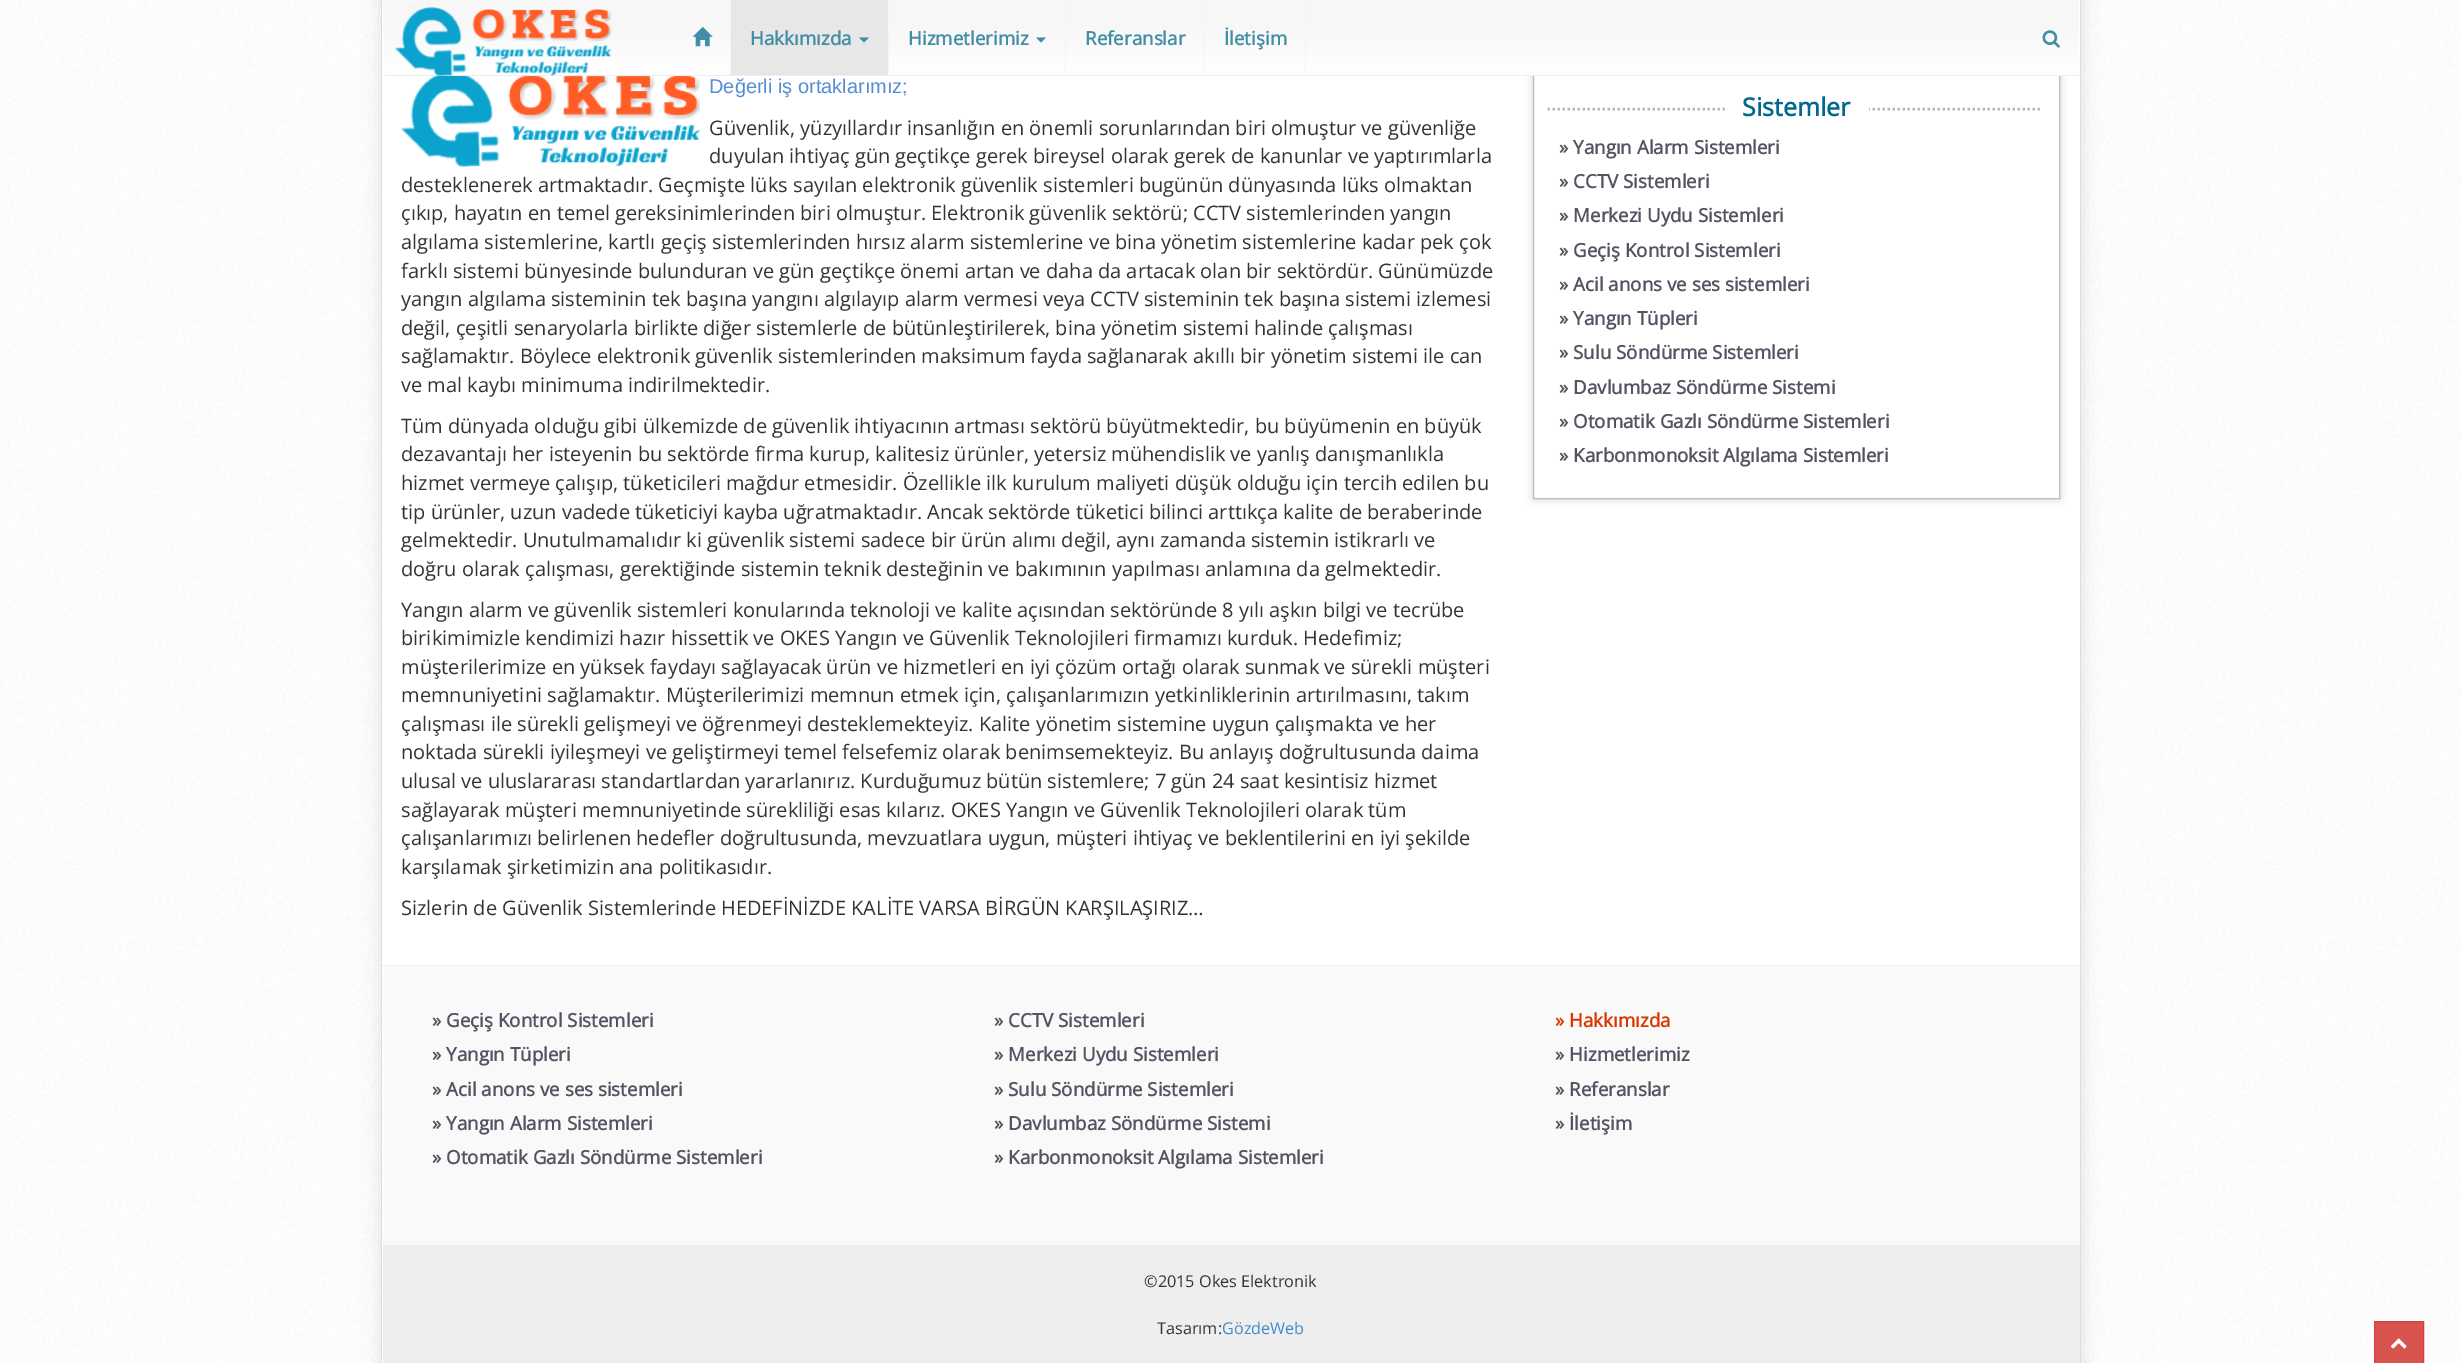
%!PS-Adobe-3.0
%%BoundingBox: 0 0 2461 1363
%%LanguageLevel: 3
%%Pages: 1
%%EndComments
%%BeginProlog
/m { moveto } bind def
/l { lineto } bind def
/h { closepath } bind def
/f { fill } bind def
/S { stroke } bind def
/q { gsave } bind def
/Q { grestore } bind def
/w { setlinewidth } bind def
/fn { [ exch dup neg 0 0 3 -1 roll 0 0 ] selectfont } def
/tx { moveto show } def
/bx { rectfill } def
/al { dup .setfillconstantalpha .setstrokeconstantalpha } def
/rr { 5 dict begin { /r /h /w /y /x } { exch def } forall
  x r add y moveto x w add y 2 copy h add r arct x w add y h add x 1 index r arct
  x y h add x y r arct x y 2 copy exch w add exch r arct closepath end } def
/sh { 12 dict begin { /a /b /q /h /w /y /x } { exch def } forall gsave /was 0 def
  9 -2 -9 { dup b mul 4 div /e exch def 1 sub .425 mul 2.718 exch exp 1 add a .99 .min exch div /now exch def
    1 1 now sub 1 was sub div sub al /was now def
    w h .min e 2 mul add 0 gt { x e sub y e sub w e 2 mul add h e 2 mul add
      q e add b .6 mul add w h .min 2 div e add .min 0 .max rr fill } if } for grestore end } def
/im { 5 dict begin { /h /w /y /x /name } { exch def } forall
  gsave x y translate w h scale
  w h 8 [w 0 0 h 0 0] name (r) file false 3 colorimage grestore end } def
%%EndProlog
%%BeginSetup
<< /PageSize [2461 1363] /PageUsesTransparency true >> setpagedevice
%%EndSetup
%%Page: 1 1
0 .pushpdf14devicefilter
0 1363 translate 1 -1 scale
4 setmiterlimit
1 setgray
0 0 2461 1363 bx
(image0.raw) 0 0 2461 1363 im
0.196 setgray
380 -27 1703 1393 0 9 0.12 sh
1 setgray
382 0 1698 1363 bx
0.867 setgray
2080 0 1 1363 bx
381 0 1 1363 bx
0 setgray
1533 71 527 428 0 4 0.2 sh
1 setgray
1534 76 525 422 bx
0.749 0.737 0.737 setrgbcolor
1533.5 71.5 526 427 rectstroke
q 383 0 m 2079 0 l 2079 75 l 383 75 l h clip newpath
<< /ShadingType 2 /ColorSpace /DeviceRGB /Coords [1231 75 1231 0] /Extend [true true] /Function << /FunctionType 3 /Domain [0 1] /Functions [<< /FunctionType 2 /Domain [0 1] /C0 [1 1 1] /C1 [0.969 0.969 0.969] /N 1 >> << /FunctionType 2 /Domain [0 1] /C0 [0.969 0.969 0.969] /C1 [0.969 0.969 0.969] /N 1 >>] /Bounds [0.7] /Encode [0 1 0 1] >> >> shfill Q
0.933 setgray
383 75 1696 1 bx
(image1.raw) 394 7 218 69 im
0.957 setgray
730 0 1 75 bx
(image2.raw) 692 26 21 21 im
0.906 setgray
731 0 157 75 bx
0.957 setgray
888 0 1 75 bx
/OpenSans-Bold 18.75 fn
0.267 0.553 0.651 setrgbcolor
(Hakkımızda) 750 45 tx
859 37.5 m 869 37.5 l 864 42.5 l h f
0.957 setgray
1065 0 1 75 bx
0.267 0.553 0.651 setrgbcolor
(Hizmetlerimiz) 908 45 tx
1036 37.5 m 1046 37.5 l 1041 42.5 l h f
0.957 setgray
1204 0 1 75 bx
0.267 0.553 0.651 setrgbcolor
(Referanslar) 1085 45 tx
0.957 setgray
1305 0 1 75 bx
0.267 0.553 0.651 setrgbcolor
(İletişim) 1224 45 tx
(image3.raw) 2042 30 18 18 im
(image4.raw) 401 76 299 91 im
/LiberationSans-Regular 20 fn
0.329 0.553 0.831 setrgbcolor
(Değerli iş ortaklarımız;) 709 93 tx
/OpenSans-Regular 20 fn
0.2 setgray
(Güvenlik, yüzyıllardır insanlığın en önemli sorunlarından biri olmuştur ve güvenliğe) 709 135 tx
(duyulan ihtiyaç gün geçtikçe gerek bireysel olarak gerek de kanunlar ve yaptırımlarla) 709 163 tx
(desteklenerek artmaktadır. Geçmişte lüks sayılan elektronik güvenlik sistemleri bugünün dünyasında lüks olmaktan) 401 192 tx
(çıkıp, hayatın en temel gereksinimlerinden biri olmuştur. Elektronik güvenlik sektörü; CCTV sistemlerinden yangın) 401 220 tx
(algılama sistemlerine, kartlı geçiş sistemlerinden hırsız alarm sistemlerine ve bina yönetim sistemlerine kadar pek çok) 401 249 tx
(farklı sistemi bünyesinde bulunduran ve gün geçtikçe önemi artan ve daha da artacak olan bir sektördür. Günümüzde) 401 278 tx
(yangın algılama sisteminin tek başına yangını algılayıp alarm vermesi veya CCTV sisteminin tek başına sistemi izlemesi) 401 306 tx
(değil, çeşitli senaryolarla birlikte diğer sistemlerle de bütünleştirilerek, bina yönetim sistemi halinde çalışması) 401 335 tx
(sağlamaktır. Böylece elektronik güvenlik sistemlerinden maksimum fayda sağlanarak akıllı bir yönetim sistemi ile can) 401 363 tx
(ve mal kaybı minimuma indirilmektedir.) 401 392 tx
(Tüm dünyada olduğu gibi ülkemizde de güvenlik ihtiyacının artması sektörü büyütmektedir, bu büyümenin en büyük) 401 433 tx
(dezavantajı her isteyenin bu sektörde firma kurup, kalitesiz ürünler, yetersiz mühendislik ve yanlış danışmanlıkla) 401 461 tx
(hizmet vermeye çalışıp, tüketicileri mağdur etmesidir. Özellikle ilk kurulum maliyeti düşük olduğu için tercih edilen bu) 401 490 tx
(tip ürünler, uzun vadede tüketiciyi kayba uğratmaktadır. Ancak sektörde tüketici bilinci arttıkça kalite de beraberinde) 401 519 tx
(gelmektedir. Unutulmamalıdır ki güvenlik sistemi sadece bir ürün alımı değil, aynı zamanda sistemin istikrarlı ve) 401 547 tx
(doğru olarak çalışması, gerektiğinde sistemin teknik desteğinin ve bakımının yapılması anlamına da gelmektedir.) 401 576 tx
(Yangın alarm ve güvenlik sistemleri konularında teknoloji ve kalite açısından sektöründe 8 yılı aşkın bilgi ve tecrübe) 401 617 tx
(birikimimizle kendimizi hazır hissettik ve OKES Yangın ve Güvenlik Teknolojileri firmamızı kurduk. Hedefimiz;) 401 645 tx
(müşterilerimize en yüksek faydayı sağlayacak ürün ve hizmetleri en iyi çözüm ortağı olarak sunmak ve sürekli müşteri) 401 674 tx
(memnuniyetini sağlamaktır. Müşterilerimizi memnun etmek için, çalışanlarımızın yetkinliklerinin artırılmasını, takım) 401 702 tx
(çalışması ile sürekli gelişmeyi ve öğrenmeyi desteklemekteyiz. Kalite yönetim sistemine uygun çalışmakta ve her) 401 731 tx
(noktada sürekli iyileşmeyi ve geliştirmeyi temel felsefemiz olarak benimsemekteyiz. Bu anlayış doğrultusunda daima) 401 759 tx
(ulusal ve uluslararası standartlardan yararlanırız. Kurduğumuz bütün sistemlere; 7 gün 24 saat kesintisiz hizmet) 401 788 tx
(sağlayarak müşteri memnuniyetinde sürekliliği esas kılarız. OKES Yangın ve Güvenlik Teknolojileri olarak tüm) 401 817 tx
(çalışanlarımızı belirlenen hedefler doğrultusunda, mevzuatlara uygun, müşteri ihtiyaç ve beklentilerini en iyi şekilde) 401 845 tx
(karşılamak şirketimizin ana politikasıdır.) 401 874 tx
(Sizlerin de Güvenlik Sistemlerinde HEDEFİNİZDE KALİTE VARSA BİRGÜN KARŞILAŞIRIZ…) 401 915 tx
0.667 0.741 0.757 setrgbcolor
2.5 w
[2.5 2.5] 0 setdash
1547.5 109 m 2042.5 109 l S
1 setgray
1727 107 142 4 bx
/OpenSans-Bold 25 fn
0 0.412 0.549 setrgbcolor
(Sistemler) 1742 116 tx
/OpenSans-Bold 18.75 fn
0.325 0.325 0.384 setrgbcolor
(» Yangın Alarm Sistemleri) 1559 154 tx
(» CCTV Sistemleri) 1559 188 tx
(» Merkezi Uydu Sistemleri) 1559 222 tx
(» Geçiş Kontrol Sistemleri) 1559 257 tx
(» Acil anons ve ses sistemleri) 1559 291 tx
(» Yangın Tüpleri) 1559 325 tx
(» Sulu Söndürme Sistemleri) 1559 359 tx
(» Davlumbaz Söndürme Sistemi) 1559 394 tx
(» Otomatik Gazlı Söndürme Sistemleri) 1559 428 tx
(» Karbonmonoksit Algılama Sistemleri) 1559 462 tx
0.976 setgray
383 966 1697 279 bx
0.933 setgray
383 965 1697 1 bx
0.325 0.325 0.384 setrgbcolor
(» Geçiş Kontrol Sistemleri) 432 1027 tx
(» Yangın Tüpleri) 432 1061 tx
(» Acil anons ve ses sistemleri) 432 1096 tx
(» Yangın Alarm Sistemleri) 432 1130 tx
(» Otomatik Gazlı Söndürme Sistemleri) 432 1164 tx
(» CCTV Sistemleri) 994 1027 tx
(» Merkezi Uydu Sistemleri) 994 1061 tx
(» Sulu Söndürme Sistemleri) 994 1096 tx
(» Davlumbaz Söndürme Sistemi) 994 1130 tx
(» Karbonmonoksit Algılama Sistemleri) 994 1164 tx
0.851 0.212 0 setrgbcolor
(» Hakkımızda) 1555 1027 tx
0.325 0.325 0.384 setrgbcolor
(» Hizmetlerimiz) 1555 1061 tx
(» Referanslar) 1555 1096 tx
(» İletişim) 1555 1130 tx
0.933 setgray
383 1245 1697 118 bx
/OpenSans-Regular 16.25 fn
0.2 setgray
(©2015 Okes Elektronik) 1144 1287 tx
(Tasarım:) 1157 1334 tx
0.259 0.545 0.792 setrgbcolor
(GözdeWeb) 1222 1334 tx
0.851 0.325 0.31 setrgbcolor
2374.5 1321.5 m 2423.5 1321.5 l 2423.5 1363.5 l 2374.5 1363.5 l h q f Q
0.831 0.247 0.227 setrgbcolor
1 w
[] 0 setdash
S
(image5.raw) 2390 1338 17 11 im
.poppdf14devicefilter showpage
%%EOF
